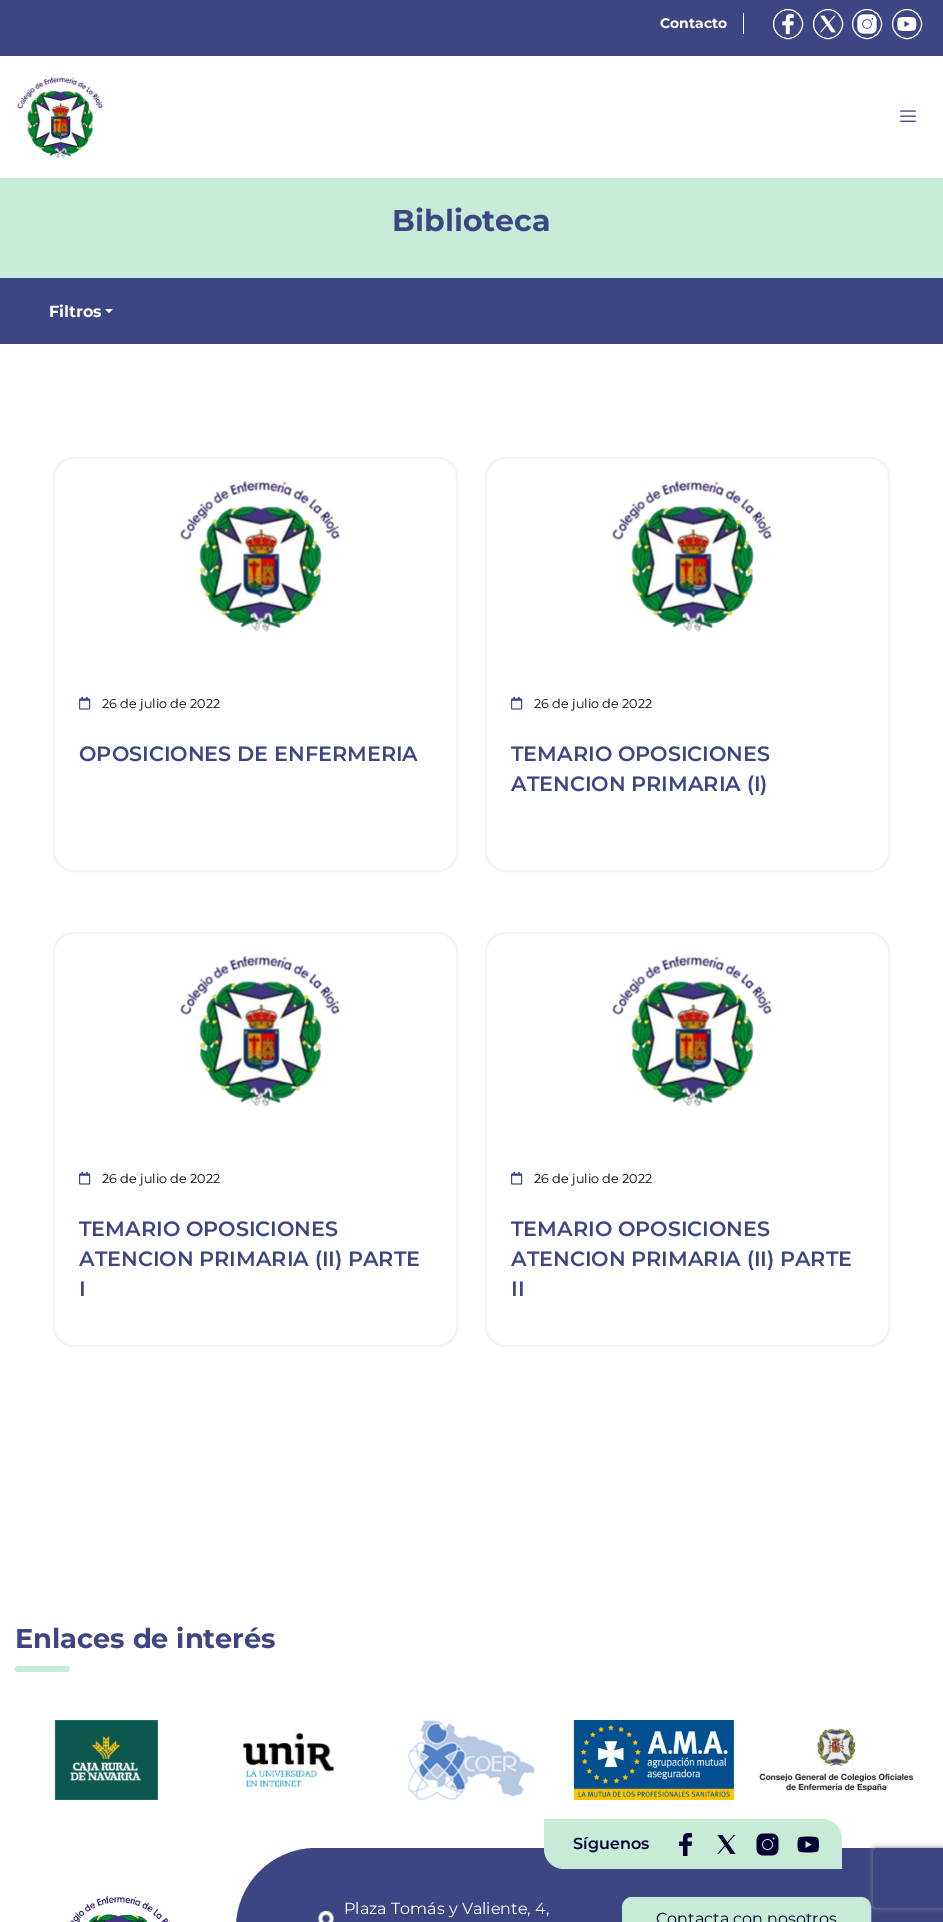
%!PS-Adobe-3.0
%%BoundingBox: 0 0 943 1922
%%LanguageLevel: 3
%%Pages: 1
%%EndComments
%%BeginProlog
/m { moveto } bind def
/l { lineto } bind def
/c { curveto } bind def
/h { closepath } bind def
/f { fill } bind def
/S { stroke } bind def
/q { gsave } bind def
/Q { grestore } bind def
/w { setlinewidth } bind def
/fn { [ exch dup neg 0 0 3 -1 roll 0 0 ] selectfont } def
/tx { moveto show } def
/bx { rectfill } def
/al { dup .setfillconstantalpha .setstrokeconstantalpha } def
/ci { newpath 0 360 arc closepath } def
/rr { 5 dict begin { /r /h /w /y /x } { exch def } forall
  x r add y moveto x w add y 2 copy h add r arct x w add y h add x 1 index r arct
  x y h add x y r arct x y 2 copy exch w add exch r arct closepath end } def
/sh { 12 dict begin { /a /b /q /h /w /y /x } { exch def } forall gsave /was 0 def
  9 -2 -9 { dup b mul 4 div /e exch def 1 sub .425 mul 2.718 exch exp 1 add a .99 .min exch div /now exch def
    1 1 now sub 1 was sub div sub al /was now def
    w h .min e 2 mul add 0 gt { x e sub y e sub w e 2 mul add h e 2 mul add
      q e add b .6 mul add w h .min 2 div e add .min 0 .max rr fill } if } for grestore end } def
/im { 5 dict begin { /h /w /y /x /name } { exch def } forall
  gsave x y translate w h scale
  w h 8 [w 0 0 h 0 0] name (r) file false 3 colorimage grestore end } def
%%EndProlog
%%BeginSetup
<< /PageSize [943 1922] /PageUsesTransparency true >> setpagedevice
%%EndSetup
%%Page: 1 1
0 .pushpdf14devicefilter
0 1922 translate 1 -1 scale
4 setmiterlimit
1 setgray
0 0 943 1922 bx
0.235 0.275 0.514 setrgbcolor
0 0 943 56 bx
1 setgray
743 13 1 21 bx
/Montserrat-Bold 14 fn
(Contacto) 660 28 tx
788 24 14.5 ci S
(image0.raw) 782 13 12 22 im
828 24 14.5 ci S
(image1.raw) 819 15 17 18 im
867 24 14.5 ci S
(image2.raw) 857 14 20 20 im
907 24 14.5 ci S
(image3.raw) 897 17 20 14 im
(image4.raw) 17 77 87 82 im
(image5.raw) 900 110 16 12 im
0.78 0.922 0.843 setrgbcolor
0 178 943 100 bx
/Montserrat-Bold 30 fn
0.235 0.275 0.514 setrgbcolor
(Biblioteca) 392 231 tx
0 278 943 66 bx
/Montserrat-Bold 16 fn
1 setgray
(Filtros) 49 317 tx
105 309 m 113 309 l 109 313 l h f
0.953 setgray
2 w
54 458 403 413 19 rr S
(image6.raw) 180 480 160 152 im
(image7.raw) 79 696 12 14 im
/Montserrat-Regular 12.75 fn
0 setgray
(26 de julio de 2022) 102 708 tx
/Montserrat-SemiBold 20.75 fn
0.235 0.275 0.514 setrgbcolor
(OPOSICIONES DE ENFERMERIA) 79 761 tx
0.953 setgray
486 458 403 413 19 rr S
(image6.raw) 612 480 160 152 im
(image7.raw) 511 696 12 14 im
/Montserrat-Regular 12.75 fn
0 setgray
(26 de julio de 2022) 534 708 tx
/Montserrat-SemiBold 20.75 fn
0.235 0.275 0.514 setrgbcolor
(TEMARIO OPOSICIONES) 511 761 tx
(ATENCION PRIMARIA \(I\)) 511 791 tx
0.953 setgray
54 933 403 413 19 rr S
(image8.raw) 180 955 160 152 im
(image7.raw) 79 1171 12 14 im
/Montserrat-Regular 12.75 fn
0 setgray
(26 de julio de 2022) 102 1183 tx
/Montserrat-SemiBold 20.75 fn
0.235 0.275 0.514 setrgbcolor
(TEMARIO OPOSICIONES) 79 1236 tx
(ATENCION PRIMARIA \(II\) PARTE) 79 1266 tx
(I) 79 1296 tx
0.953 setgray
486 933 403 413 19 rr S
(image8.raw) 612 955 160 152 im
(image7.raw) 511 1171 12 14 im
/Montserrat-Regular 12.75 fn
0 setgray
(26 de julio de 2022) 534 1183 tx
/Montserrat-SemiBold 20.75 fn
0.235 0.275 0.514 setrgbcolor
(TEMARIO OPOSICIONES) 511 1236 tx
(ATENCION PRIMARIA \(II\) PARTE) 511 1266 tx
(II) 511 1296 tx
/Montserrat-Bold 27.25 fn
(Enlaces de interés) 15 1648 tx
0.78 0.922 0.843 setrgbcolor
15 1666 55 6 3 rr f
(image9.raw) 54 1720 104 80 im
(image10.raw) 243 1732 92 56 im
(image11.raw) 408 1720 127 80 im
(image12.raw) 573 1720 161 80 im
(image13.raw) 759 1728 156 64 im
(image14.raw) 70 1896 100 26 im
0.235 0.275 0.514 setrgbcolor
316 1848 m 943 1848 l 943 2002 l 236 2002 l 236 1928 l 236 1884 272 1848 316 1848 c h f
0.78 0.922 0.843 setrgbcolor
544 1819 m 822 1819 l 833 1819 842 1828 842 1839 c 842 1869 l 564 1869 l 553 1869 544 1860 544 1849 c h f
/Montserrat-SemiBold 16 fn
0 0 0.2 setrgbcolor
(Síguenos) 573 1849 tx
(image15.raw) 679 1833 13 23 im
(image16.raw) 717 1835 19 19 im
(image17.raw) 756 1833 23 23 im
(image18.raw) 797 1836 23 17 im
(image19.raw) 318 1911 16 11 im
/Montserrat-Regular 16 fn
1 setgray
(Plaza Tomás y Valiente, 4,) 344 1914 tx
0.78 0.922 0.843 setrgbcolor
623 1898 247 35 9 rr q f Q
S
0 0 0.2 setrgbcolor
(Contacta con nosotros) 656 1924 tx
q
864 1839 m 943 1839 l 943 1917 l 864 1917 l h 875 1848 m 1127 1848 l 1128 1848 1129 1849 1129 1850 c 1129 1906 l 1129 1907 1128 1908 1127 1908 c 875 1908 l 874 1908 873 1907 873 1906 c 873 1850 l 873 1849 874 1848 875 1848 c h eoclip newpath
0.502 setgray
873 1848 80 60 2 2.5 1 sh
Q
.poppdf14devicefilter showpage
%%EOF
